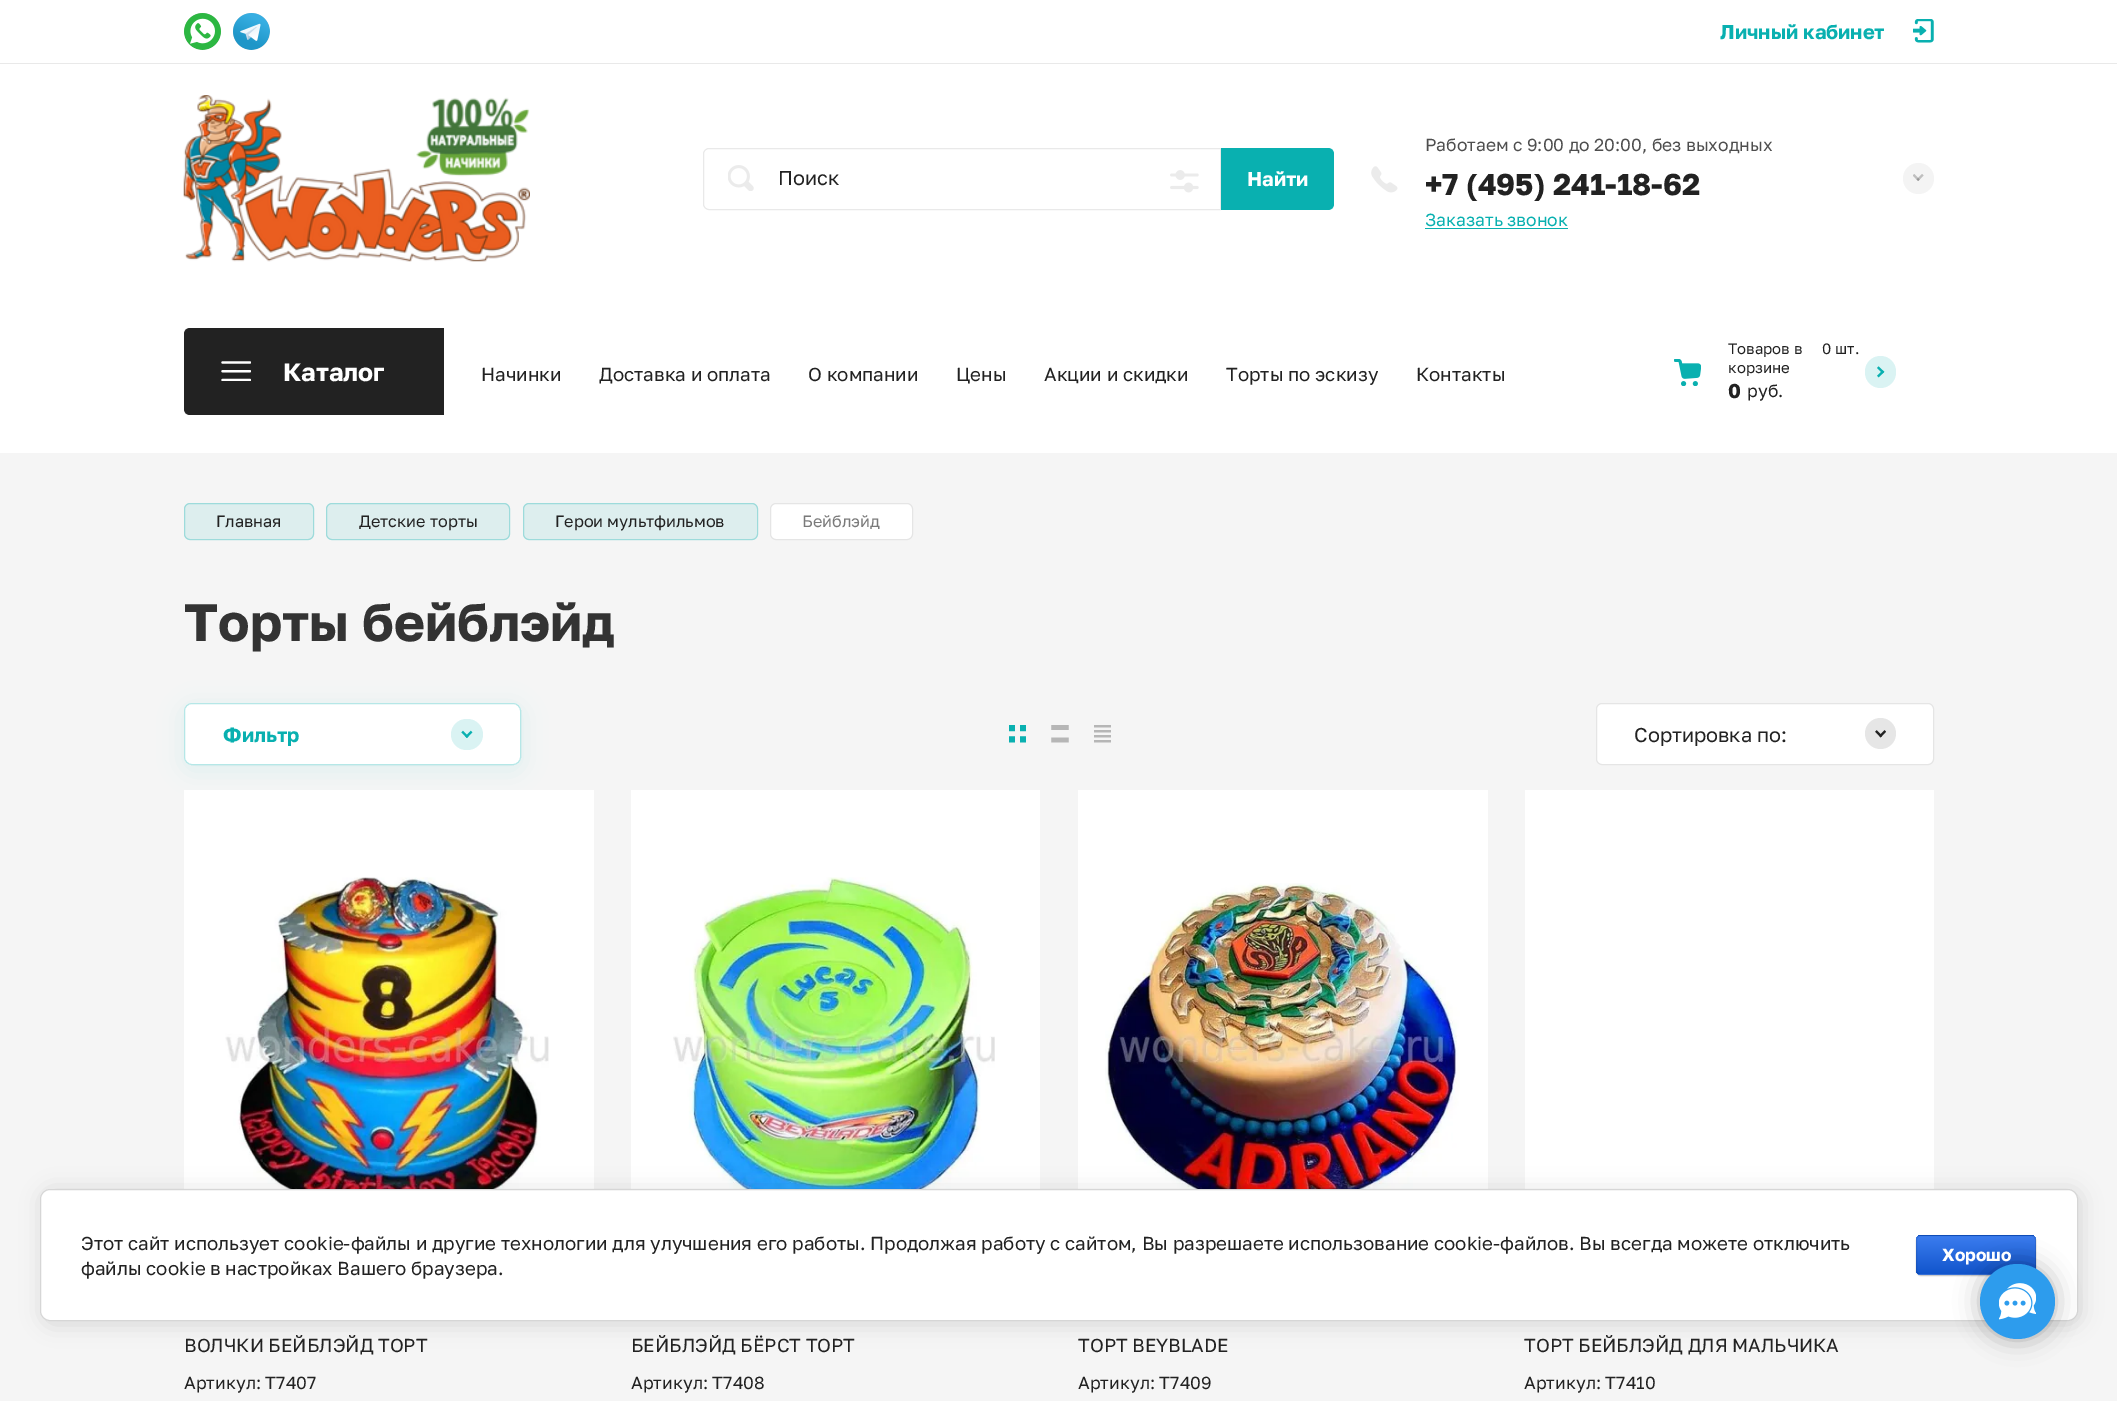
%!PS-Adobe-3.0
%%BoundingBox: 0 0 2117 1401
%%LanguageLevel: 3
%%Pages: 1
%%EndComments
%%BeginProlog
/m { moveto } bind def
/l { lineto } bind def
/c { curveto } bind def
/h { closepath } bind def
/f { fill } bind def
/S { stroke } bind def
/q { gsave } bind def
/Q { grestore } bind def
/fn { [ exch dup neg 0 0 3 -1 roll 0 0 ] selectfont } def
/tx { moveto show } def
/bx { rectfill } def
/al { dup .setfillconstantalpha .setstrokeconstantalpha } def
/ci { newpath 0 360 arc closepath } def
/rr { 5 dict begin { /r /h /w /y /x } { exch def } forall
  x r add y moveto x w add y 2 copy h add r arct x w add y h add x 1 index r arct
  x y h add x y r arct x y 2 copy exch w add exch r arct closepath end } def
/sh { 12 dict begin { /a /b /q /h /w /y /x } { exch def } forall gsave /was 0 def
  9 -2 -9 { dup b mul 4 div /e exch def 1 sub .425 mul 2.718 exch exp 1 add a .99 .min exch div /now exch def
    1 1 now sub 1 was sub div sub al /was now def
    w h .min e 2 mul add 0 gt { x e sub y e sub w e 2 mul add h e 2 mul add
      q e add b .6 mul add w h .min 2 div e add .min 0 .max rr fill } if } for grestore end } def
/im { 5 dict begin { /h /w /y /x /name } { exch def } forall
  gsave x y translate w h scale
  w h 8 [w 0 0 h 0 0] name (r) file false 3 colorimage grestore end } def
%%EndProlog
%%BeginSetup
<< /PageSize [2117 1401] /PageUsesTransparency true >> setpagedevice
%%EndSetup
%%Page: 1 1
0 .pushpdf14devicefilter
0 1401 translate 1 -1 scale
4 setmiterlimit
1 setgray
0 0 2117 1401 bx
0.914 setgray
0 63 2117 1 bx
0.827 setgray
202.5 31.5 18.5 ci f
(image0.raw) 184 13 37 37 im
251.5 31.5 18.5 ci f
(image1.raw) 233 13 37 37 im
/GolosText-Bold 20 fn
0.035 0.69 0.69 setrgbcolor
(Личный кабинет) 1720 39 tx
(image2.raw) 1913 19 21 24 im
(image3.raw) 183 95 347 167 im
0.914 setgray
709 148.5 m 1220.5 148.5 l 1220.5 209.5 l 709 209.5 l 706 209.5 703.5 207 703.5 204 c 703.5 154 l 703.5 151 706 148.5 709 148.5 c h S
(image4.raw) 1170 170 29 23 im
(image5.raw) 728 165 26 26 im
/GolosText-Regular 20 fn
0.133 setgray
(Поиск) 778 185 tx
0.035 0.69 0.69 setrgbcolor
1221 148 m 1328 148 l 1331.5 148 1334 150.5 1334 154 c 1334 204 l 1334 207.5 1331.5 210 1328 210 c 1221 210 l h f
/GolosText-Bold 20 fn
1 setgray
(Найти) 1247 186 tx
(image6.raw) 1371 166 27 27 im
/GolosText-Regular 17.5 fn
0.306 setgray
(Работаем с 9:00 до 20:00, без выходных) 1425 151 tx
/GolosText-Bold 30 fn
0.133 setgray
(+7 \(495\) 241-18-62) 1425 195 tx
/GolosText-Regular 17.5 fn
0.035 0.69 0.69 setrgbcolor
(Заказать звонок) 1425 226 tx
1425 228 143 1 bx
0.957 setgray
1918.5 178.5 15.5 ci f
(image7.raw) 1913 174 11 7 im
0.133 setgray
190 328 m 444 328 l 444 415 l 190 415 l 186.5 415 184 412.5 184 409 c 184 334 l 184 330.5 186.5 328 190 328 c h f
(image8.raw) 221 361 30 20 im
/GolosText-Bold 25 fn
1 setgray
(Каталог) 283 381 tx
/GolosText-Regular 18.75 fn
0.133 setgray
(Начинки) 481 381 tx
(Доставка и оплата) 599 381 tx
(О компании) 808 381 tx
(Цены) 956 381 tx
(Акции и скидки) 1044 381 tx
(Торты по эскизу) 1226 381 tx
(Контакты) 1416 381 tx
(image9.raw) 1674 359 27 27 im
/GolosText-Regular 15 fn
(Товаров в) 1728 354 tx
(корзине) 1728 373 tx
(0 шт.) 1822 354 tx
/GolosText-Bold 20 fn
(0) 1728 398 tx
/GolosText-Regular 17.5 fn
(руб.) 1747 397 tx
0.855 0.953 0.953 setrgbcolor
1865 356 31 32 15.5 rr f
(image10.raw) 1877 366 8 12 im
0.961 setgray
0 453 2117 948 bx
0.867 0.933 0.933 setrgbcolor
184 503 130 37 6 rr f
0.3 al
0.035 0.69 0.69 setrgbcolor
184.5 503.5 129 36 5.5 rr S
/GolosText-Regular 16.25 fn
1 al
0.133 setgray
(Главная) 216 527 tx
0.867 0.933 0.933 setrgbcolor
326 503 184 37 6 rr f
0.3 al
0.035 0.69 0.69 setrgbcolor
326.5 503.5 183 36 5.5 rr S
1 al
0.133 setgray
(Детские торты) 359 527 tx
0.867 0.933 0.933 setrgbcolor
523 503 235 37 6 rr f
0.3 al
0.035 0.69 0.69 setrgbcolor
523.5 503.5 234 36 5.5 rr S
1 al
0.133 setgray
(Герои мультфильмов) 555 527 tx
1 setgray
770.5 503.5 142 36 5.5 rr q f Q
0.898 setgray
S
0.478 setgray
(Бейблэйд) 802 527 tx
/GolosText-Bold 52.5 fn
0.2 setgray
(Торты бейблэйд) 184 641 tx
0.035 0.69 0.69 setrgbcolor
184 708 337 62 8 12.5 0.1 sh
1 setgray
184 703 337 62 8 rr f
0.3 al
0.035 0.69 0.69 setrgbcolor
184.5 703.5 336 61 7.5 rr S
/GolosText-Bold 20 fn
1 al
(Фильтр) 223 742 tx
0.855 0.953 0.953 setrgbcolor
451 719 32 31 15.5 rr f
(image11.raw) 461 730 12 8 im
(image12.raw) 1009 725 17 18 im
(image13.raw) 1051 725 18 18 im
(image14.raw) 1094 725 17 18 im
1 setgray
1596.5 703.5 337 61 5.5 rr q f Q
0.898 setgray
S
/GolosText-Regular 20 fn
0.133 setgray
(Сортировка по:) 1634 742 tx
0.902 setgray
1880.5 733.5 15.5 ci f
(image15.raw) 1875 730 11 8 im
1 setgray
184 790 410 399 bx
(image16.raw) 225 877 324 312 im
/GolosText-Regular 18.75 fn
0.133 setgray
(ВОЛЧКИ БЕЙБЛЭЙД ТОРТ) 184 1352 tx
/GolosText-Regular 17.5 fn
(Артикул: T7407) 184 1389 tx
1 setgray
631 790 409 399 bx
(image17.raw) 673 877 322 312 im
/GolosText-Regular 18.75 fn
0.133 setgray
(БЕЙБЛЭЙД БЁРСТ ТОРТ) 631 1352 tx
/GolosText-Regular 17.5 fn
(Артикул: T7408) 631 1389 tx
1 setgray
1078 790 410 399 bx
(image18.raw) 1105 883 355 306 im
/GolosText-Regular 18.75 fn
0.133 setgray
(ТОРТ BEYBLADE) 1078 1352 tx
/GolosText-Regular 17.5 fn
(Артикул: T7409) 1078 1389 tx
1 setgray
1525 790 409 399 bx
/GolosText-Regular 18.75 fn
0.133 setgray
(ТОРТ БЕЙБЛЭЙД ДЛЯ МАЛЬЧИКА) 1524 1352 tx
/GolosText-Regular 17.5 fn
(Артикул: T7410) 1524 1389 tx
0 setgray
43 1191 2037 133 10 11 0.14 sh
1 setgray
40.5 1189.5 2037 131 9.5 rr q f Q
0.839 setgray
S
0 setgray
1916 1236 120 40 5 0.5 0.2 sh
q
1916 1235 120 40 5 rr clip newpath
q 1916 1235 m 2036 1235 l 2036 1236 l 1916 1236 l h clip newpath
<< /ShadingType 2 /ColorSpace /DeviceRGB /Coords [1976 1199 1976 1236] /Extend [true true] /Function << /FunctionType 2 /Domain [0 1] /C0 [0.231 0.486 0.937] /C1 [0.067 0.333 0.8] /N 1 >> >> shfill Q
q 1916 1236 m 2036 1236 l 2036 1274 l 1916 1274 l h clip newpath
<< /ShadingType 2 /ColorSpace /DeviceRGB /Coords [1976 1236 1976 1274] /Extend [true true] /Function << /FunctionType 2 /Domain [0 1] /C0 [0.231 0.486 0.937] /C1 [0.067 0.333 0.8] /N 1 >> >> shfill Q
q 1916 1274 m 1992 1274 l 1992 1275 l 1916 1275 l h clip newpath
<< /ShadingType 2 /ColorSpace /DeviceRGB /Coords [1976 1274 1976 1311] /Extend [true true] /Function << /FunctionType 2 /Domain [0 1] /C0 [0.231 0.486 0.937] /C1 [0.067 0.333 0.8] /N 1 >> >> shfill Q
Q
0.1 al
1916.5 1235.5 119 39 4.5 rr S
1 al
1980 1264 75 75 37.5 12.5 0.3 sh
/GolosText-Bold 17.5 fn
1 setgray
(Хорошо) 1942 1261 tx
0.176 0.612 0.929 setrgbcolor
2017.5 1301.5 37.5 ci f
(image19.raw) 1999 1283 37 37 im
/GolosText-Regular 18.75 fn
0.133 setgray
(Этот сайт использует cookie-файлы и другие технологии для улучшения его работы. Продолжая работу с сайтом, Вы разрешаете использование cookie-файлов. Вы всегда можете отключить) 81 1250 tx
(файлы cookie в настройках Вашего браузера.) 81 1275 tx
.poppdf14devicefilter showpage
%%EOF
